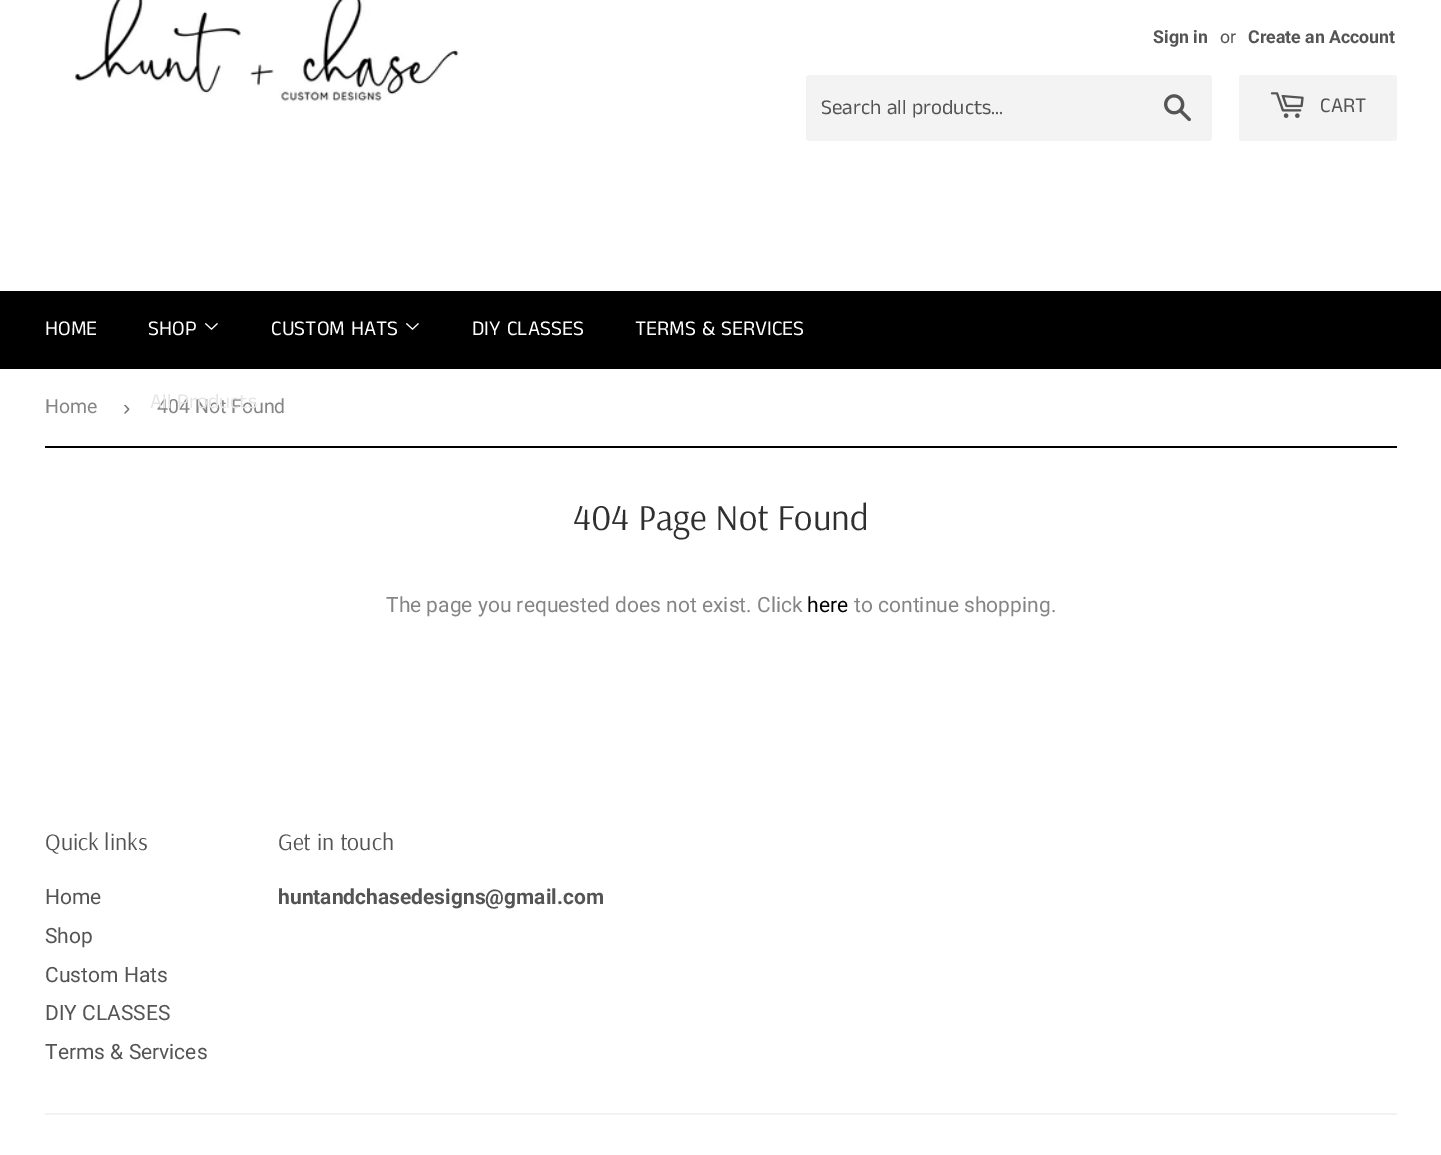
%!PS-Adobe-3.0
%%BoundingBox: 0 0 1441 1155
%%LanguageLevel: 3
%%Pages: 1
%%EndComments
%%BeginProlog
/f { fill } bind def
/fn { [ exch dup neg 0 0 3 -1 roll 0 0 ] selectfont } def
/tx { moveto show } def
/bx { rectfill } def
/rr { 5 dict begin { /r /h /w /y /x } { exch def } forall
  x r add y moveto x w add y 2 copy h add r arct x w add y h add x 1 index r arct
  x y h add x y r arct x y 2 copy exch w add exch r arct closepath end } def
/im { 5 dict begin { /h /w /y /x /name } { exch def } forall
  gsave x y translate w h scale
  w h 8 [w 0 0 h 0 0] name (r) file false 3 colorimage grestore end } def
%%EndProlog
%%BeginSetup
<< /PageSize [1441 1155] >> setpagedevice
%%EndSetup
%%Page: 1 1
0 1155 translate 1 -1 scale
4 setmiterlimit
1 setgray
0 0 1441 1155 bx
(image0.raw) 75 0 384 103 im
/Roboto-Bold 17.75 fn
0.329 setgray
(Sign in) 1153 43 tx
/Roboto-Regular 17.75 fn
(or) 1220 43 tx
/Roboto-Bold 17.75 fn
(Create an Account) 1248 43 tx
0.953 setgray
806 75 406 66 3 rr f
/AnekTamil-Regular 21 fn
0.329 setgray
(Search all products...) 821 114 tx
(image1.raw) 1164 94 27 28 im
0.953 setgray
1239 75 158 66 3 rr f
(image2.raw) 1270 92 34 26 im
0.329 setgray
(CART) 1320 112 tx
0 setgray
0 291 1441 78 bx
1 setgray
(HOME) 45 335 tx
(SHOP) 148 335 tx
(image3.raw) 205 323 13 7 im
/Roboto-Regular 19.5 fn
0.522 setgray
(404 Not Found) 157 413 tx
/AnekTamil-Regular 21 fn
0.902 setgray
(All Products) 150 408 tx
1 setgray
(CUSTOM HATS) 271 335 tx
(image3.raw) 406 323 13 7 im
(DIY CLASSES) 472 335 tx
(TERMS & SERVICES) 635 335 tx
0 setgray
45 446 1352 2 bx
/Roboto-Regular 19.5 fn
0.522 setgray
(Home) 45 413 tx
/LiberationSans-Regular 22 fn
0.463 setgray
(›) 123 415 tx
/Arsenal-Regular 36.5 fn
0.184 setgray
(404 Page Not Found) 573 530 tx
/Roboto-Regular 21 fn
0.522 setgray
(The page you requested does not exist. Click) 386 612 tx
0 setgray
(here) 807 612 tx
0.522 setgray
(to continue shopping.) 854 612 tx
/Arsenal-Regular 23.75 fn
0.329 setgray
(Quick links) 45 850 tx
/Roboto-Regular 21 fn
(Home) 45 904 tx
(Shop) 45 943 tx
(Custom Hats) 45 982 tx
(DIY CLASSES) 45 1020 tx
(Terms & Services) 45 1059 tx
/Arsenal-Regular 23.75 fn
(Get in touch) 278 850 tx
/Roboto-Bold 21 fn
(huntandchasedesigns@gmail.com) 278 904 tx
0.949 setgray
45 1113 1352 2 bx
showpage
%%EOF
